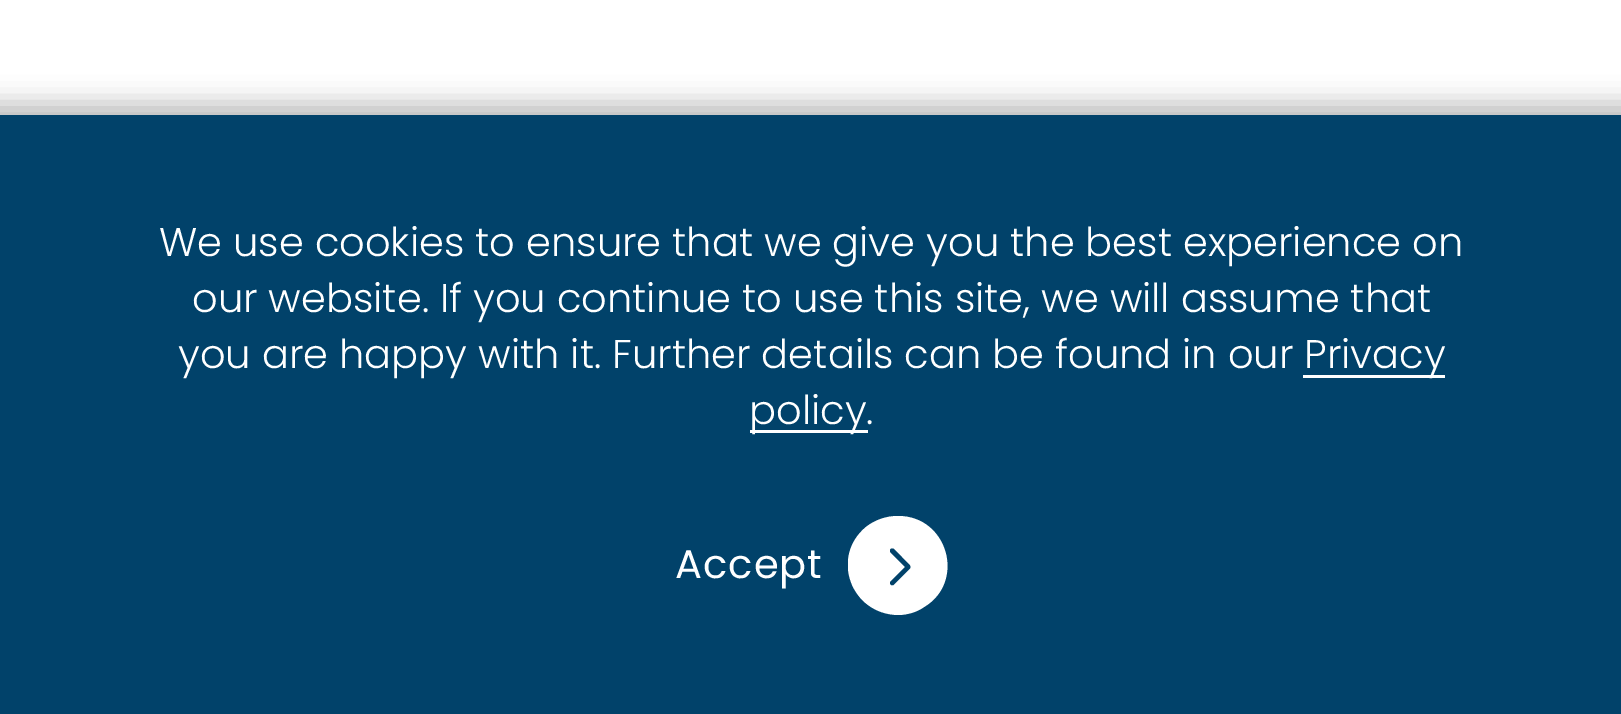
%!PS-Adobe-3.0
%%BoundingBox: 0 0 1621 714
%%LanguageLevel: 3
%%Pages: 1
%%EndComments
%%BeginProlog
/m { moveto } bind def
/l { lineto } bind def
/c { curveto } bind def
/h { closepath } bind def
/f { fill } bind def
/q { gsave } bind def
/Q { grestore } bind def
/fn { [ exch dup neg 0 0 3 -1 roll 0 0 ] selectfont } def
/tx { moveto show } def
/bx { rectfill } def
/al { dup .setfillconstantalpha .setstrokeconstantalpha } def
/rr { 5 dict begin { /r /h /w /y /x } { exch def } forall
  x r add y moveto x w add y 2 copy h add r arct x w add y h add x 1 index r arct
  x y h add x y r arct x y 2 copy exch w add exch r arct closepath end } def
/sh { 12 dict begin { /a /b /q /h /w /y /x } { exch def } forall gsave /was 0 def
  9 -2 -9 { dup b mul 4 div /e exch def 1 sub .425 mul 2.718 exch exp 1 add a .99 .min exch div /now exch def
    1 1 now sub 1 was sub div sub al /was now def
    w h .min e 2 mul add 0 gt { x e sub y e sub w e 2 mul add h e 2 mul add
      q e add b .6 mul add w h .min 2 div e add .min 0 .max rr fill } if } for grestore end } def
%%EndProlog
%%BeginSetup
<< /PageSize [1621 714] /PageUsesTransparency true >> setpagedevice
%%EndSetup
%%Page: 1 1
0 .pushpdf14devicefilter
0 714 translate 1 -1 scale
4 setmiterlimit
1 setgray
0 0 1621 714 bx
0 setgray
-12 103 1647 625 0 12.5 0.25 sh
0.004 0.259 0.416 setrgbcolor
0 115 1621 599 bx
/Poppins-Light 40 fn
1 setgray
(We use cookies to ensure that we give you the best experience on) 159 256 tx
(our website. If you continue to use this site, we will assume that) 192 312 tx
(you are happy with it. Further details can be found in our) 178 368 tx
1303 375 142 3 bx
(Privacy) 1304 368 tx
750 430 118 3 bx
(policy.) 749 424 tx
/Poppins-Regular 40 fn
675 578 m 1 0 (Accept) ashow
q
848 515 100 100 rectclip
898 516 m 948 516 966 582 924 607 c 917 612 907 615 898 615 c 851 614 830 557 866 527 c 875 520 886 516 898 516 c h f
Q
0.004 0.259 0.416 setrgbcolor
894 584.5 m 893 585.5 891.5 585.5 890.5 584.5 c 890 583.5 890 582 890.5 581.5 c 905 567 l 890.5 552.5 l 890 551.5 890 550 890.5 549 c 891.5 548.5 893 548.5 894 549 c 910 565.5 l 910.5 566.5 910.5 567.5 910 568.5 c h eofill
.poppdf14devicefilter showpage
%%EOF
